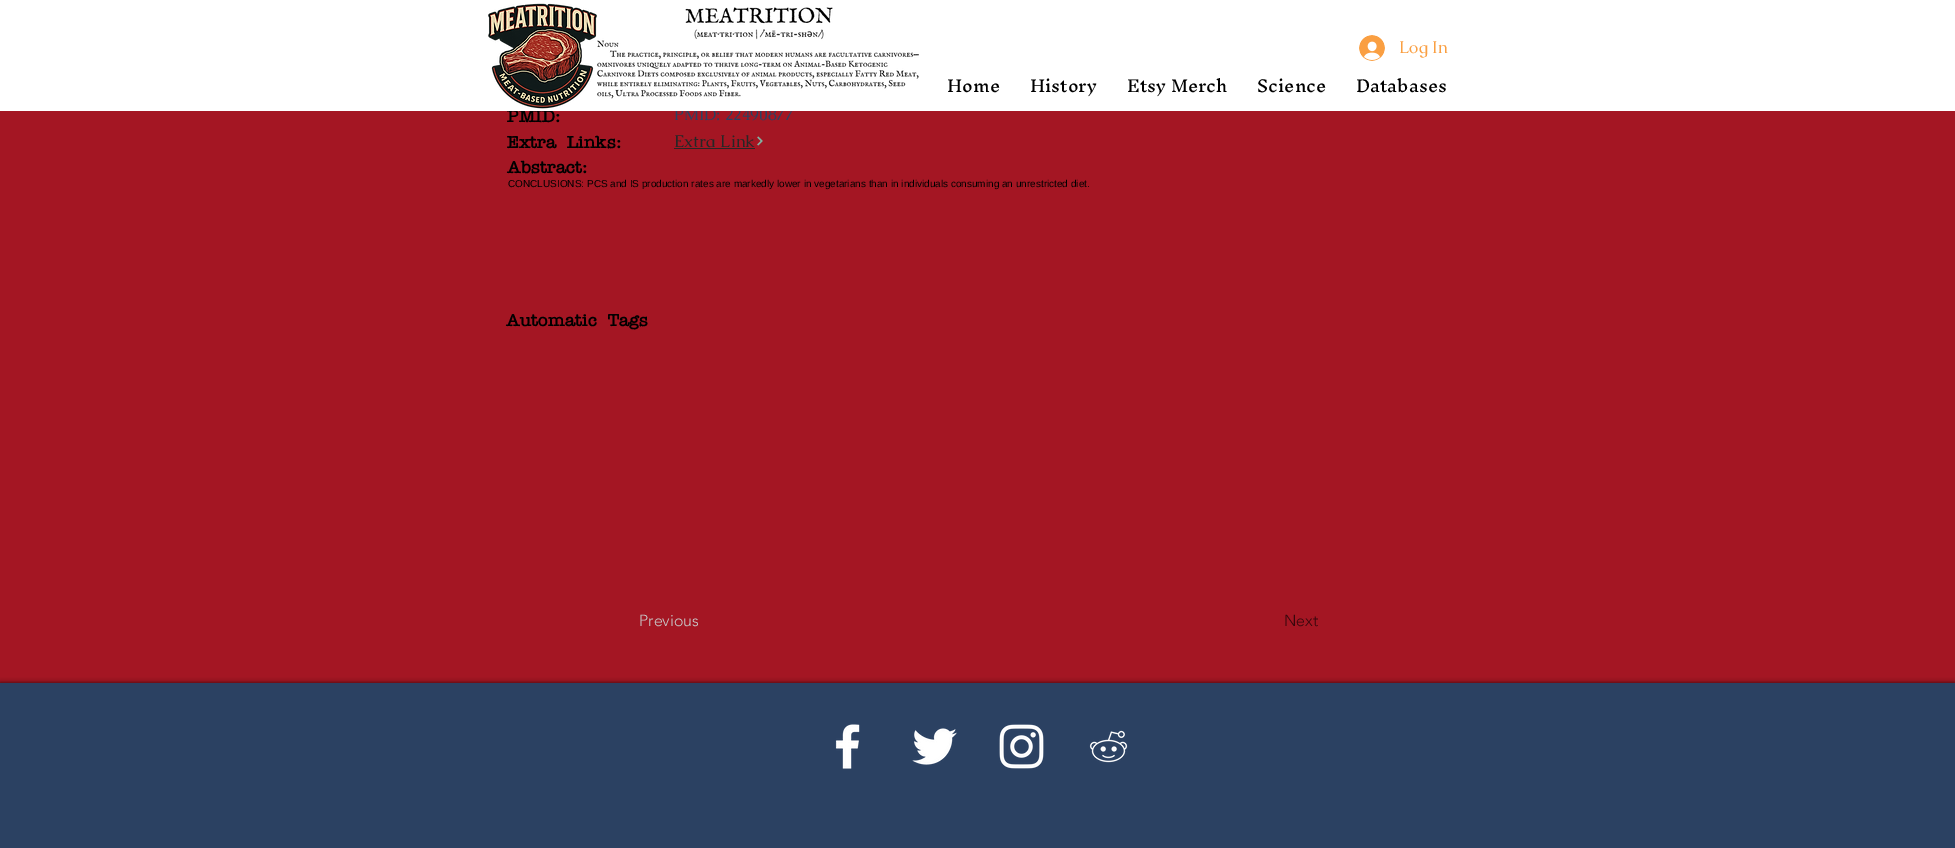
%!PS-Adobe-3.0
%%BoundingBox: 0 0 1955 848
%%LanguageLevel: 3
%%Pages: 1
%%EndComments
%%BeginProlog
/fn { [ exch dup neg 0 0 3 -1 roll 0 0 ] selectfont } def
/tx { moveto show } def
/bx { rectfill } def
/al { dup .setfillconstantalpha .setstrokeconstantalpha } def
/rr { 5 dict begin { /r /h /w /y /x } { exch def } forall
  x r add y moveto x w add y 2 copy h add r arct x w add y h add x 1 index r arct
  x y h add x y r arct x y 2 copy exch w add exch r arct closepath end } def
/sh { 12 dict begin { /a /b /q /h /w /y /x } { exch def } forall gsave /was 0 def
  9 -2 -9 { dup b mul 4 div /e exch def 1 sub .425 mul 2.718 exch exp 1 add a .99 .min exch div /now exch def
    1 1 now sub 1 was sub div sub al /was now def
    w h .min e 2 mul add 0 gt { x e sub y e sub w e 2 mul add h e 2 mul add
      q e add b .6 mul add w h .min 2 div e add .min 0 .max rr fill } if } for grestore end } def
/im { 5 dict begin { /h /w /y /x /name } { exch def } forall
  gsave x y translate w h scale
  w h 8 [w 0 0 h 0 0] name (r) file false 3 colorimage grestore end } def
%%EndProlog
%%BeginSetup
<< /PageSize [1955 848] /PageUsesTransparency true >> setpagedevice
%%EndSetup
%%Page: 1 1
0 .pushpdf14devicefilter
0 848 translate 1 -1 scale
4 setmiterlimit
0.643 0.086 0.137 setrgbcolor
0 0 1955 848 bx
/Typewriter-Bold 18 fn
0 setgray
(PMID:) 507 122 tx
/Caudex-Regular 16 fn
0.169 0.255 0.384 setrgbcolor
(PMID: 22490877) 674 120 tx
1 setgray
0 0 1955 111 bx
(image0.raw) 488 3 109 106 im
(image1.raw) 597 7 322 92 im
(image2.raw) 1359 35 26 26 im
/Caudex-Regular 17 fn
0.98 0.624 0.259 setrgbcolor
(Log In) 1399 53 tx
/InknutAntiqua-Regular 16 fn
0 setgray
(Home) 947 92 tx
(History) 1030 92 tx
(Etsy Merch) 1127 92 tx
(Science) 1257 92 tx
(Databases) 1356 92 tx
/Typewriter-Bold 18 fn
(Extra Links:) 507 148 tx
/Caudex-Regular 17 fn
0.157 0.149 0.149 setrgbcolor
(Extra Link) 674 147 tx
674 148 81 1 bx
(image3.raw) 757 136 6 10 im
/Typewriter-Bold 18 fn
0 setgray
(Abstract:) 507 173 tx
/LiberationSans-Regular 10 fn
(CONCLUSIONS: PCS and IS production rates are markedly lower in vegetarians than in individuals consuming an unrestricted diet.) 508 187 tx
/Typewriter-Bold 18 fn
(Automatic Tags) 506 326 tx
/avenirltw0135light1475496-Light 16 fn
0.78 setgray
(Previous) 639 626 tx
0.216 0.027 0.047 setrgbcolor
(Next) 1284 626 tx
0 setgray
0 683 1955 165 0 2.5 0.7 sh
0.169 0.255 0.384 setrgbcolor
0 683 1955 165 bx
(image4.raw) 835 724 25 45 im
(image5.raw) 912 728 45 37 im
(image6.raw) 999 724 45 45 im
(image7.raw) 1089 730 39 33 im
.poppdf14devicefilter showpage
%%EOF
